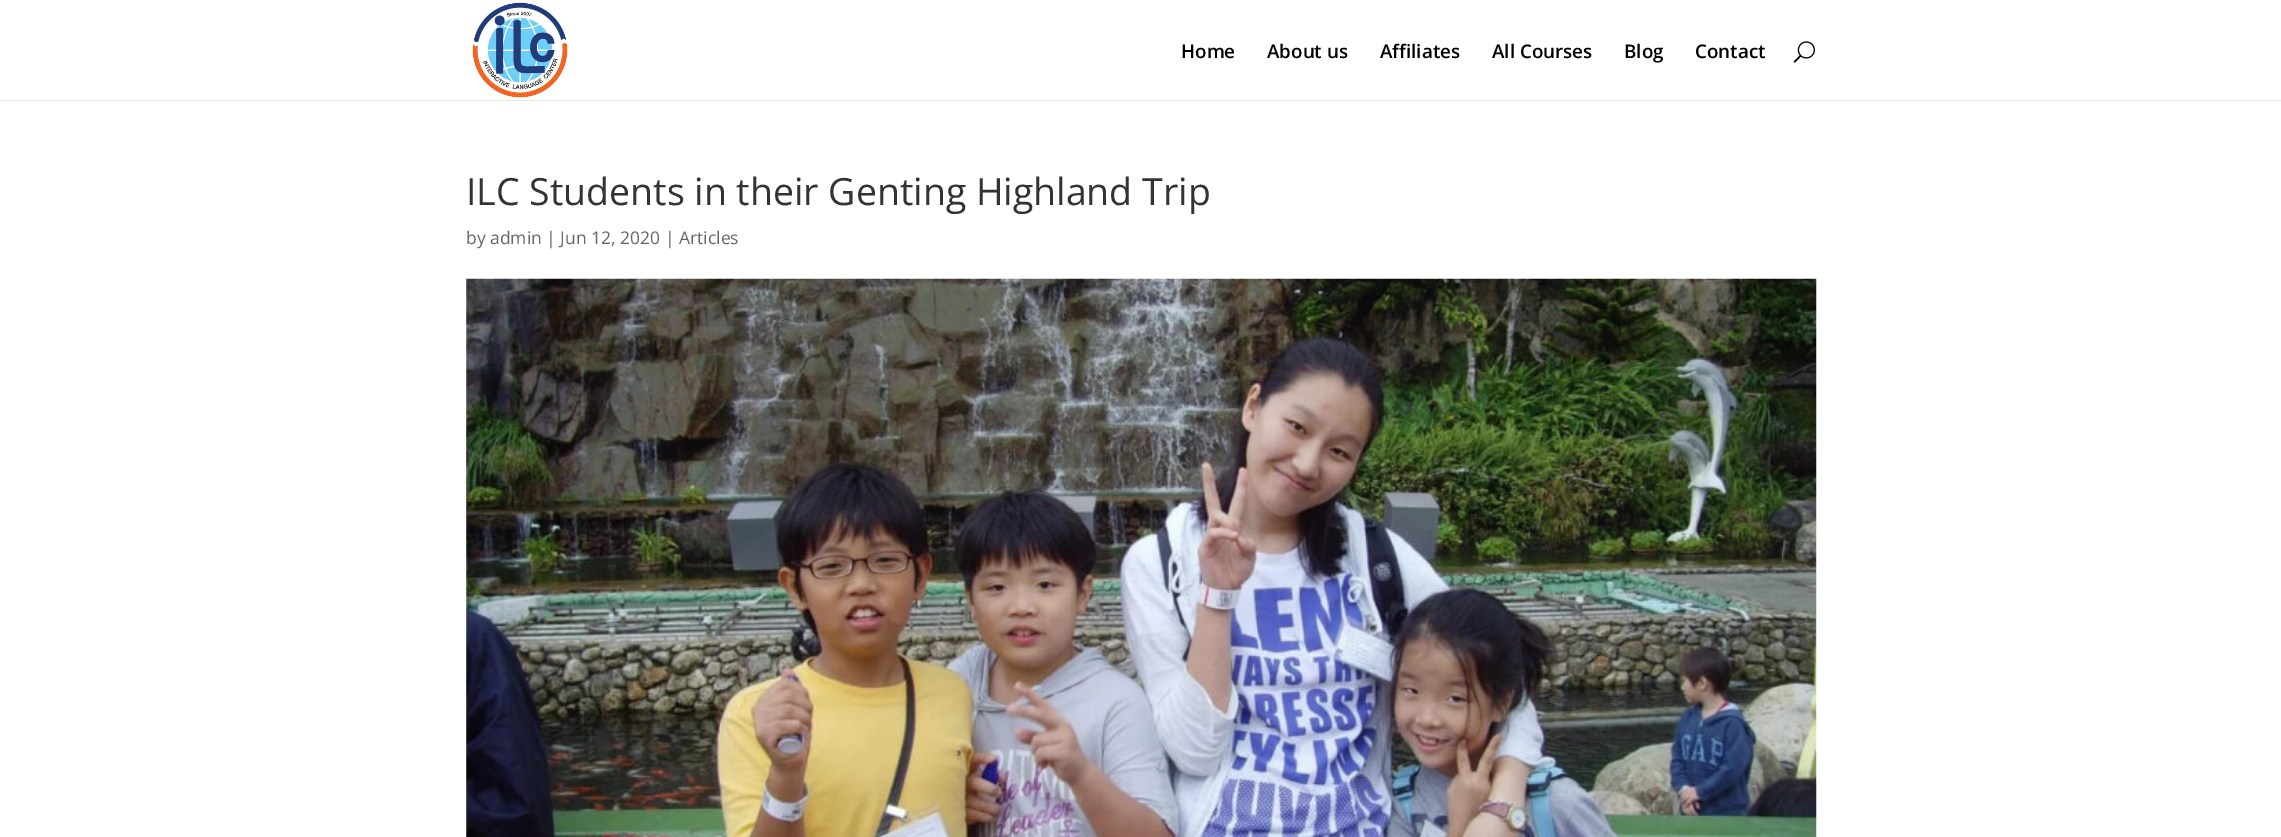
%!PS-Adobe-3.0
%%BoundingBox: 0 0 2281 837
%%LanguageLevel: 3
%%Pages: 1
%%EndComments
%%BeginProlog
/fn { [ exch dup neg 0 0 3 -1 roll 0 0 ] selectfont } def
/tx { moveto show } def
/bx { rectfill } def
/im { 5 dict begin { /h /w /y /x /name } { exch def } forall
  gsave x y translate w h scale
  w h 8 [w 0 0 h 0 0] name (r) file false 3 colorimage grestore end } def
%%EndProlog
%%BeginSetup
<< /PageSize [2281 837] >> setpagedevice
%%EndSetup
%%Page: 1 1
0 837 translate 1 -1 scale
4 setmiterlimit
1 setgray
0 0 2281 837 bx
0.902 setgray
0 100 2281 1 bx
(image0.raw) 472 2 96 96 im
/OpenSans-SemiBold 18.75 fn
0 setgray
(Home) 1181 58 tx
(About us) 1267 58 tx
(Affiliates) 1380 58 tx
(All Courses) 1492 58 tx
(Blog) 1624 58 tx
(Contact) 1695 58 tx
(image1.raw) 1793 41 22 22 im
/OpenSans-Regular 37.5 fn
0.2 setgray
(ILC Students in their Genting Highland Trip) 466 205 tx
/OpenSans-Regular 17.5 fn
0.4 setgray
(by admin | Jun 12, 2020 | Articles) 466 244 tx
(image2.raw) 466 278 1351 559 im
showpage
%%EOF
